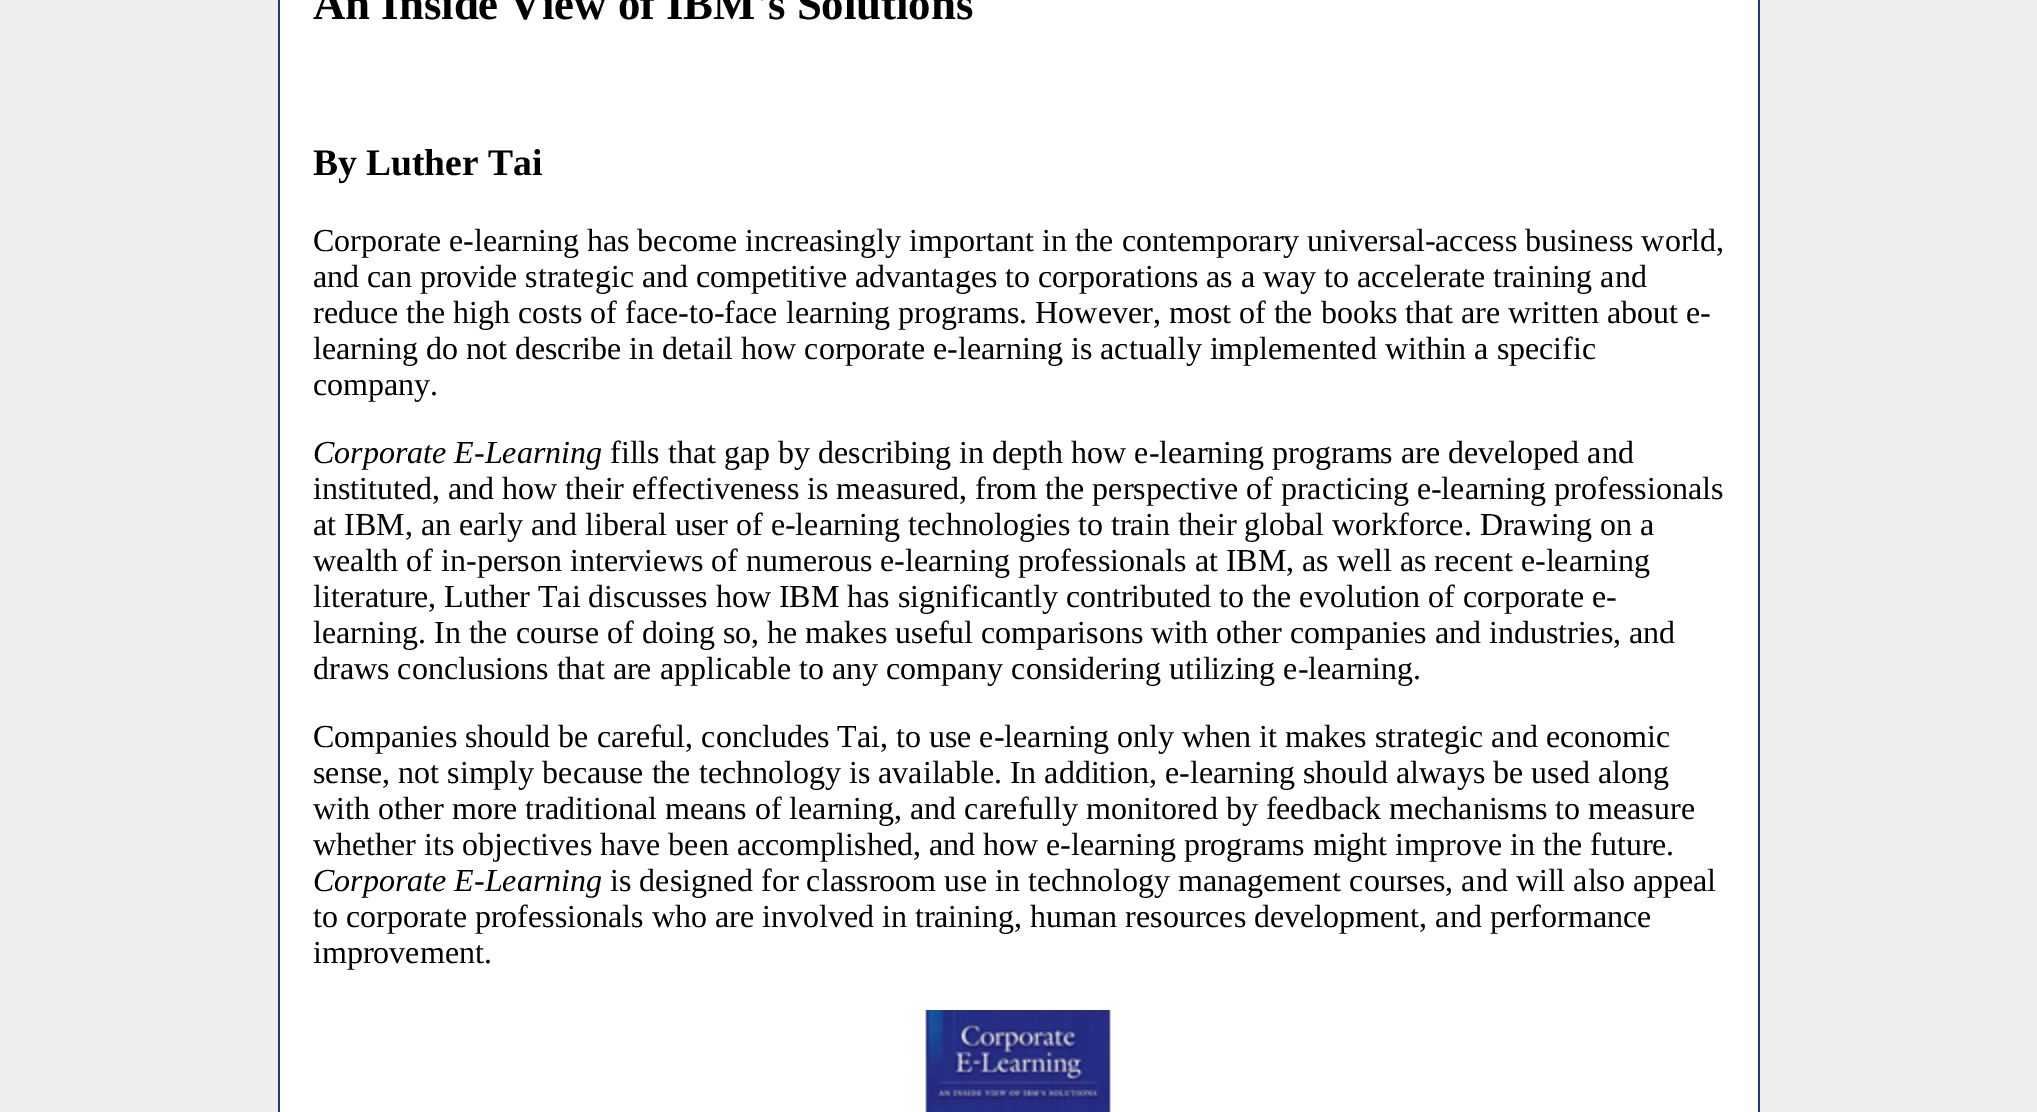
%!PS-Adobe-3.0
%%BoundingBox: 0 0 2037 1112
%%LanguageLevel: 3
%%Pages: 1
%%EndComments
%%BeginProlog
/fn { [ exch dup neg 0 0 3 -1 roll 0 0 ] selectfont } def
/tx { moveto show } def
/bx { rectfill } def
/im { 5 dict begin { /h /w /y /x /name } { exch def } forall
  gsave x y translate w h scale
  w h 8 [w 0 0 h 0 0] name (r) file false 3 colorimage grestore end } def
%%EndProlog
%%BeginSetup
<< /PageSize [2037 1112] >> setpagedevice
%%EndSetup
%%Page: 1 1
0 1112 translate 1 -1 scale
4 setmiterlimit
0.933 setgray
0 0 2037 1112 bx
1 setgray
280 0 1478 1112 bx
0.118 0.224 0.533 setrgbcolor
1758 0 2 1112 bx
278 0 2 1112 bx
/LiberationSerif-Bold 44.75 fn
0 setgray
(An Inside View of IBM's Solutions) 313 19 tx
/LiberationSerif-Bold 37.5 fn
(By Luther Tai) 313 175 tx
/LiberationSerif-Regular 32 fn
(Corporate e-learning has become increasingly important in the contemporary universal-access business world,) 313 251 tx
(and can provide strategic and competitive advantages to corporations as a way to accelerate training and) 313 287 tx
(reduce the high costs of face-to-face learning programs. However, most of the books that are written about e-) 313 323 tx
(learning do not describe in detail how corporate e-learning is actually implemented within a specific) 313 359 tx
(company.) 313 395 tx
/LiberationSerif-Italic 32 fn
(Corporate E-Learning) 313 463 tx
/LiberationSerif-Regular 32 fn
(fills that gap by describing in depth how e-learning programs are developed and) 610 463 tx
(instituted, and how their effectiveness is measured, from the perspective of practicing e-learning professionals) 313 499 tx
(at IBM, an early and liberal user of e-learning technologies to train their global workforce. Drawing on a) 313 535 tx
(wealth of in-person interviews of numerous e-learning professionals at IBM, as well as recent e-learning) 313 571 tx
(literature, Luther Tai discusses how IBM has significantly contributed to the evolution of corporate e-) 313 607 tx
(learning. In the course of doing so, he makes useful comparisons with other companies and industries, and) 313 643 tx
(draws conclusions that are applicable to any company considering utilizing e-learning.) 313 679 tx
(Companies should be careful, concludes Tai, to use e-learning only when it makes strategic and economic) 313 747 tx
(sense, not simply because the technology is available. In addition, e-learning should always be used along) 313 783 tx
(with other more traditional means of learning, and carefully monitored by feedback mechanisms to measure) 313 819 tx
(whether its objectives have been accomplished, and how e-learning programs might improve in the future.) 313 855 tx
/LiberationSerif-Italic 32 fn
(Corporate E-Learning) 313 891 tx
/LiberationSerif-Regular 32 fn
(is designed for classroom use in technology management courses, and will also appeal) 610 891 tx
(to corporate professionals who are involved in training, human resources development, and performance) 313 927 tx
(improvement.) 313 963 tx
(image0.raw) 925 1010 186 102 im
showpage
%%EOF
